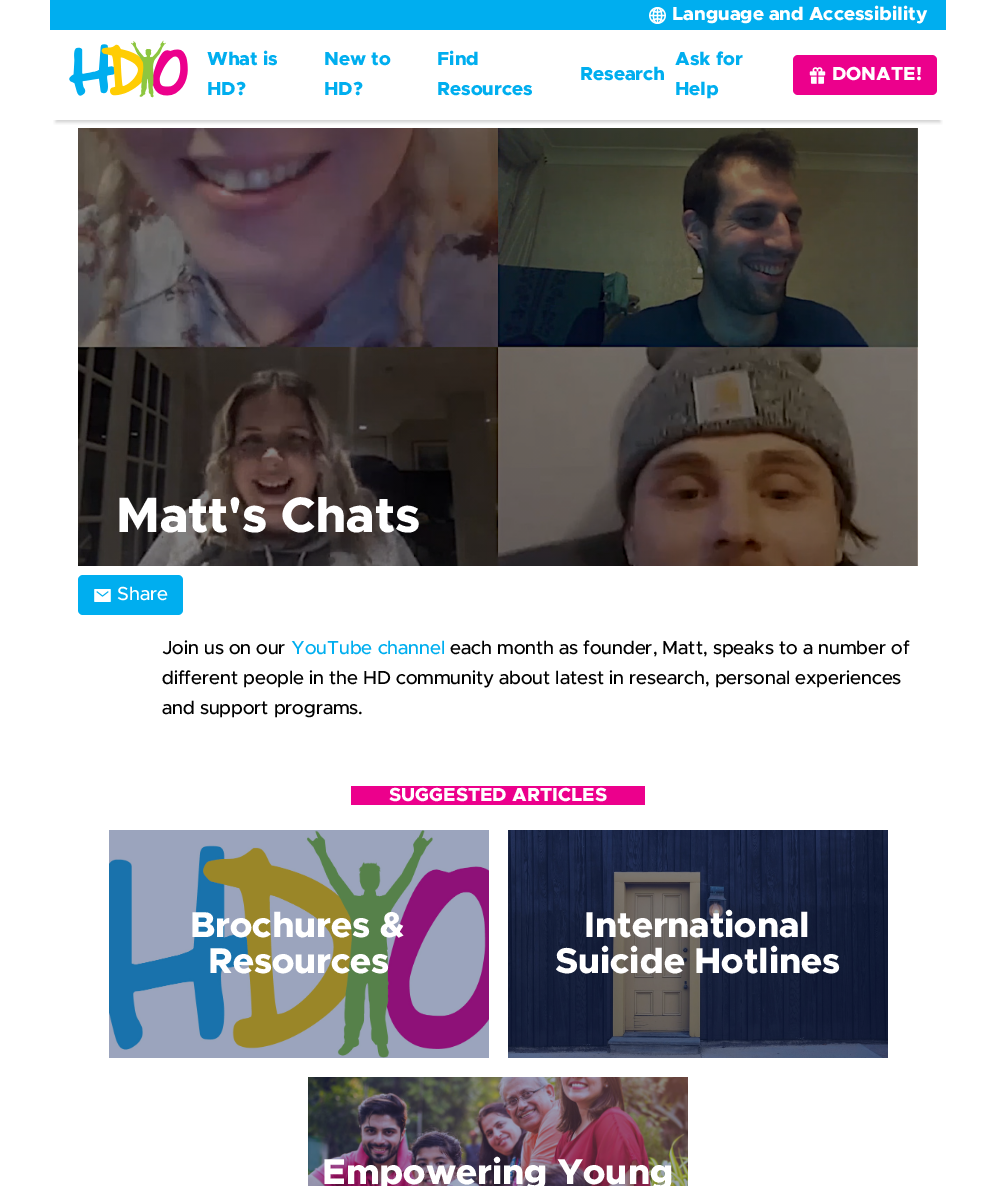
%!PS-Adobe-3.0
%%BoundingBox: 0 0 996 1186
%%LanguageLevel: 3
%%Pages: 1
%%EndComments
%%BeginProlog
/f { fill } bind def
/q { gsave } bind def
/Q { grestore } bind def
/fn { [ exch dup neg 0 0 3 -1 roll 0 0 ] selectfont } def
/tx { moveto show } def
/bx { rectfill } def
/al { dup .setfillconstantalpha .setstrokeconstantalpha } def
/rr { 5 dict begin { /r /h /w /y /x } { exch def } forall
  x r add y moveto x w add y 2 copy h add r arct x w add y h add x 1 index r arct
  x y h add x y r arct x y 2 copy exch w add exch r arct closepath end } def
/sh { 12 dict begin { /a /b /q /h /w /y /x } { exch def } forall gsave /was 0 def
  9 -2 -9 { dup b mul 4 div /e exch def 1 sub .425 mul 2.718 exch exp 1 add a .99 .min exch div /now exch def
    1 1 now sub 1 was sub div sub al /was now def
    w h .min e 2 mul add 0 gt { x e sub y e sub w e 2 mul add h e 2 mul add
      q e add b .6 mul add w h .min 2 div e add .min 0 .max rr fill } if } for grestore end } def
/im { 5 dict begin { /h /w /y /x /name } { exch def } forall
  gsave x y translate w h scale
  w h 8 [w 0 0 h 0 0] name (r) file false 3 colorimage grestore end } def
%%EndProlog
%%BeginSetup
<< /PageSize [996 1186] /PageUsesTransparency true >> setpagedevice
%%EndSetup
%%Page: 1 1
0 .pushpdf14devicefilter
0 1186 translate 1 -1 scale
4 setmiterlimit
1 setgray
0 0 996 1186 bx
0 0.682 0.937 setrgbcolor
50 0 896 30 bx
(image0.raw) 649 7 17 17 im
/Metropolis-ExtraBold 19 fn
1 setgray
(Language and Accessibility) 672 20 tx
(image3.raw) 78 128 840 438 im
q
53 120 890 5 rectclip
0.592 setgray
56 44 884 78 0 2 0.5 sh
Q
(image1.raw) 69 40 119 58 im
0 0.682 0.937 setrgbcolor
(What is) 207 65 tx
(HD?) 207 95 tx
(New to) 324 65 tx
(HD?) 324 95 tx
(Find) 437 65 tx
(Resources) 437 95 tx
(Research) 580 80 tx
(Ask for) 675 65 tx
(Help) 675 95 tx
0.925 0 0.549 setrgbcolor
793 55 144 40 5 rr f
(image2.raw) 809 67 17 17 im
1 setgray
(DONATE!) 832 80 tx
/Metropolis-ExtraBold 50 fn
(Matt's Chats) 116 532 tx
0 0.682 0.937 setrgbcolor
78 575 105 40 5 rr f
(image4.raw) 94 589 17 13 im
/Metropolis-Medium 19 fn
1 setgray
(Share) 117 600 tx
0 setgray
(Join us on our) 162 654 tx
0 0.682 0.937 setrgbcolor
(YouTube channel) 291 654 tx
0 setgray
(each month as founder, Matt, speaks to a number of) 450 654 tx
(different people in the HD community about latest in research, personal experiences) 162 684 tx
(and support programs.) 162 714 tx
0.925 0 0.549 setrgbcolor
351 786 294 19 bx
/Metropolis-ExtraBold 19 fn
1 setgray
(SUGGESTED ARTICLES) 389 801 tx
(image5.raw) 109 830 380 228 im
/Metropolis-ExtraBold 36 fn
(Brochures &) 190 937 tx
(Resources) 208 973 tx
(image6.raw) 508 830 380 228 im
(International) 584 937 tx
(Suicide Hotlines) 555 973 tx
(image7.raw) 308 1077 380 109 im
(Empowering Young) 322 1184 tx
.poppdf14devicefilter showpage
%%EOF
